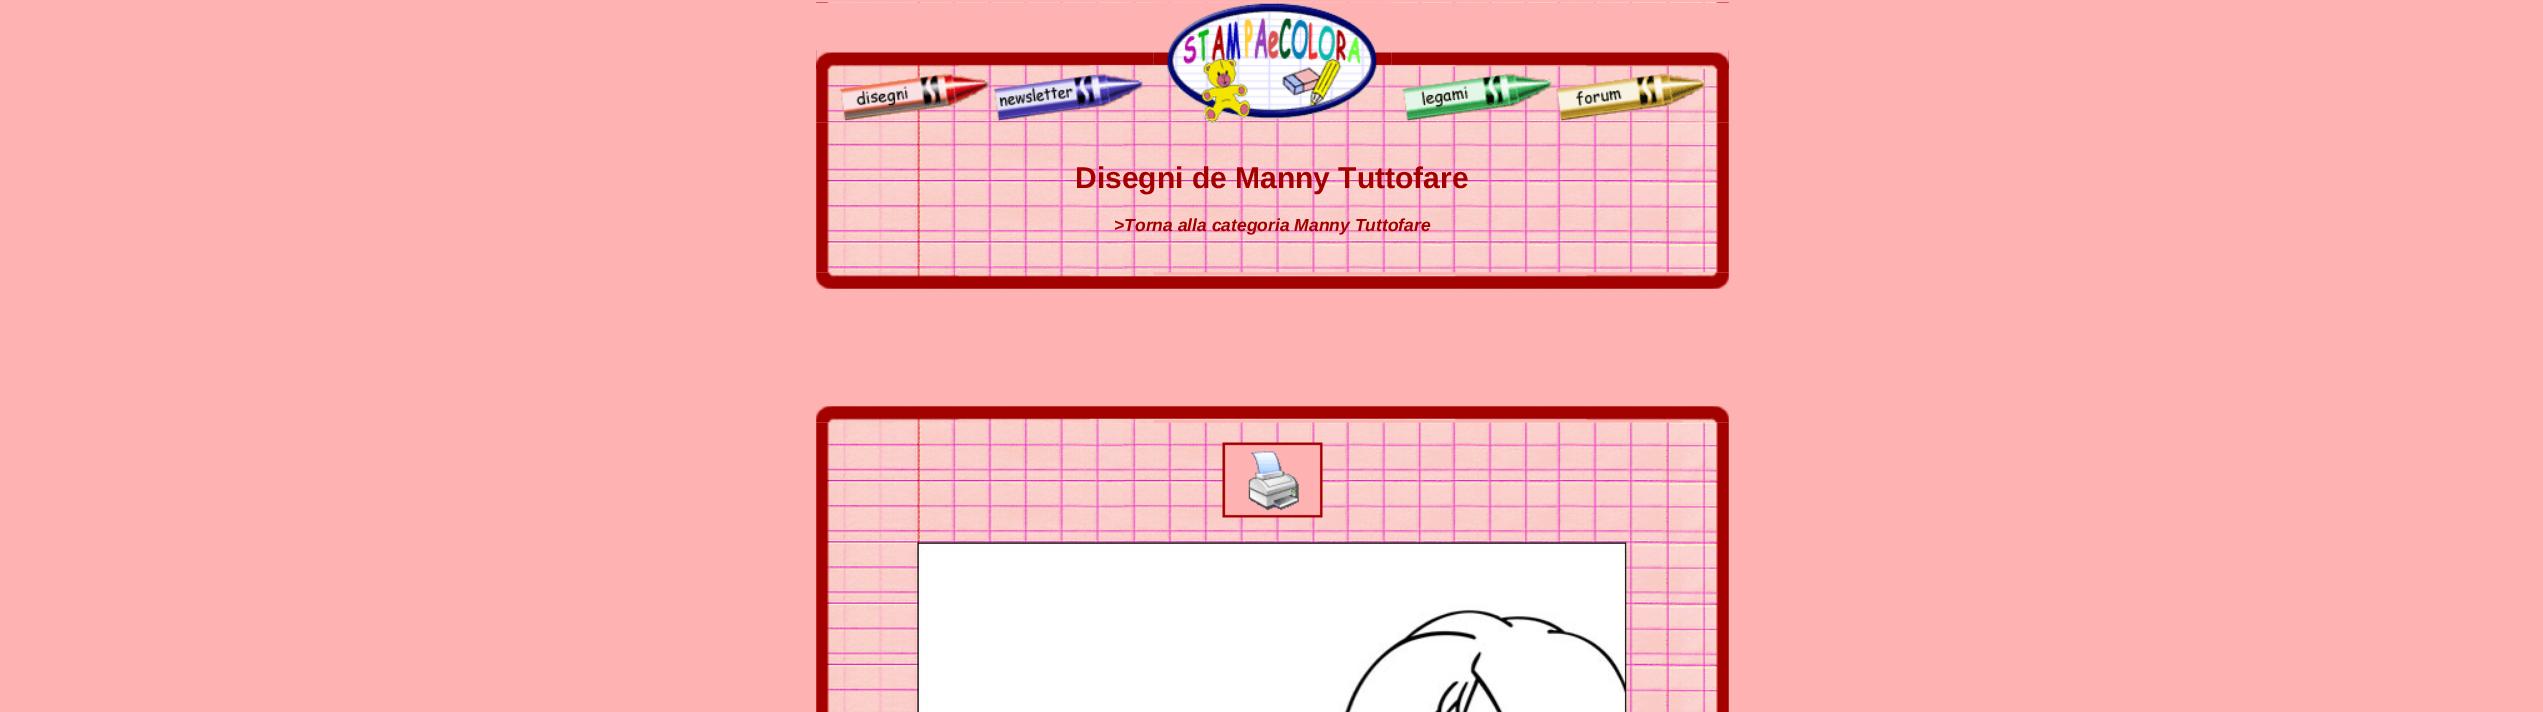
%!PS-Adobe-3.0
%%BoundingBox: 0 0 2543 712
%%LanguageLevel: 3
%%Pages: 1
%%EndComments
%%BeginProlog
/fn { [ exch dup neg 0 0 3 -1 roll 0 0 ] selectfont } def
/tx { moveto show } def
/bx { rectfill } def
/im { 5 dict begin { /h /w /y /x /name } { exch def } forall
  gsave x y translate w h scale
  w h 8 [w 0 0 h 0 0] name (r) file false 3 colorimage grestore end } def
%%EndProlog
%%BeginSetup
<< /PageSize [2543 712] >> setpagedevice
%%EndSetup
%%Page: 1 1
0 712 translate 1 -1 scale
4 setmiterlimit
0.996 0.698 0.698 setrgbcolor
0 0 2543 712 bx
(image0.raw) 816 2 913 121 im
816 3 338 47 bx
1391 3 338 47 bx
(image6.raw) 816 122 913 151 im
(image1.raw) 1153 2 239 121 im
(image2.raw) 816 50 338 19 im
(image3.raw) 1391 50 338 19 im
(image4.raw) 840 73 303 49 im
(image5.raw) 1402 73 304 49 im
/LiberationSans-Bold 30 fn
0.639 0 0 setrgbcolor
(Disegni de Manny Tuttofare) 1075 188 tx
/LiberationSans-BoldItalic 17.5 fn
(>Torna alla categoria Manny Tuttofare) 1114 231 tx
(image7.raw) 816 272 913 17 im
(image9.raw) 816 422 913 290 im
(image8.raw) 816 406 913 17 im
(image10.raw) 1222 442 101 76 im
(image11.raw) 917 542 710 170 im
showpage
%%EOF
